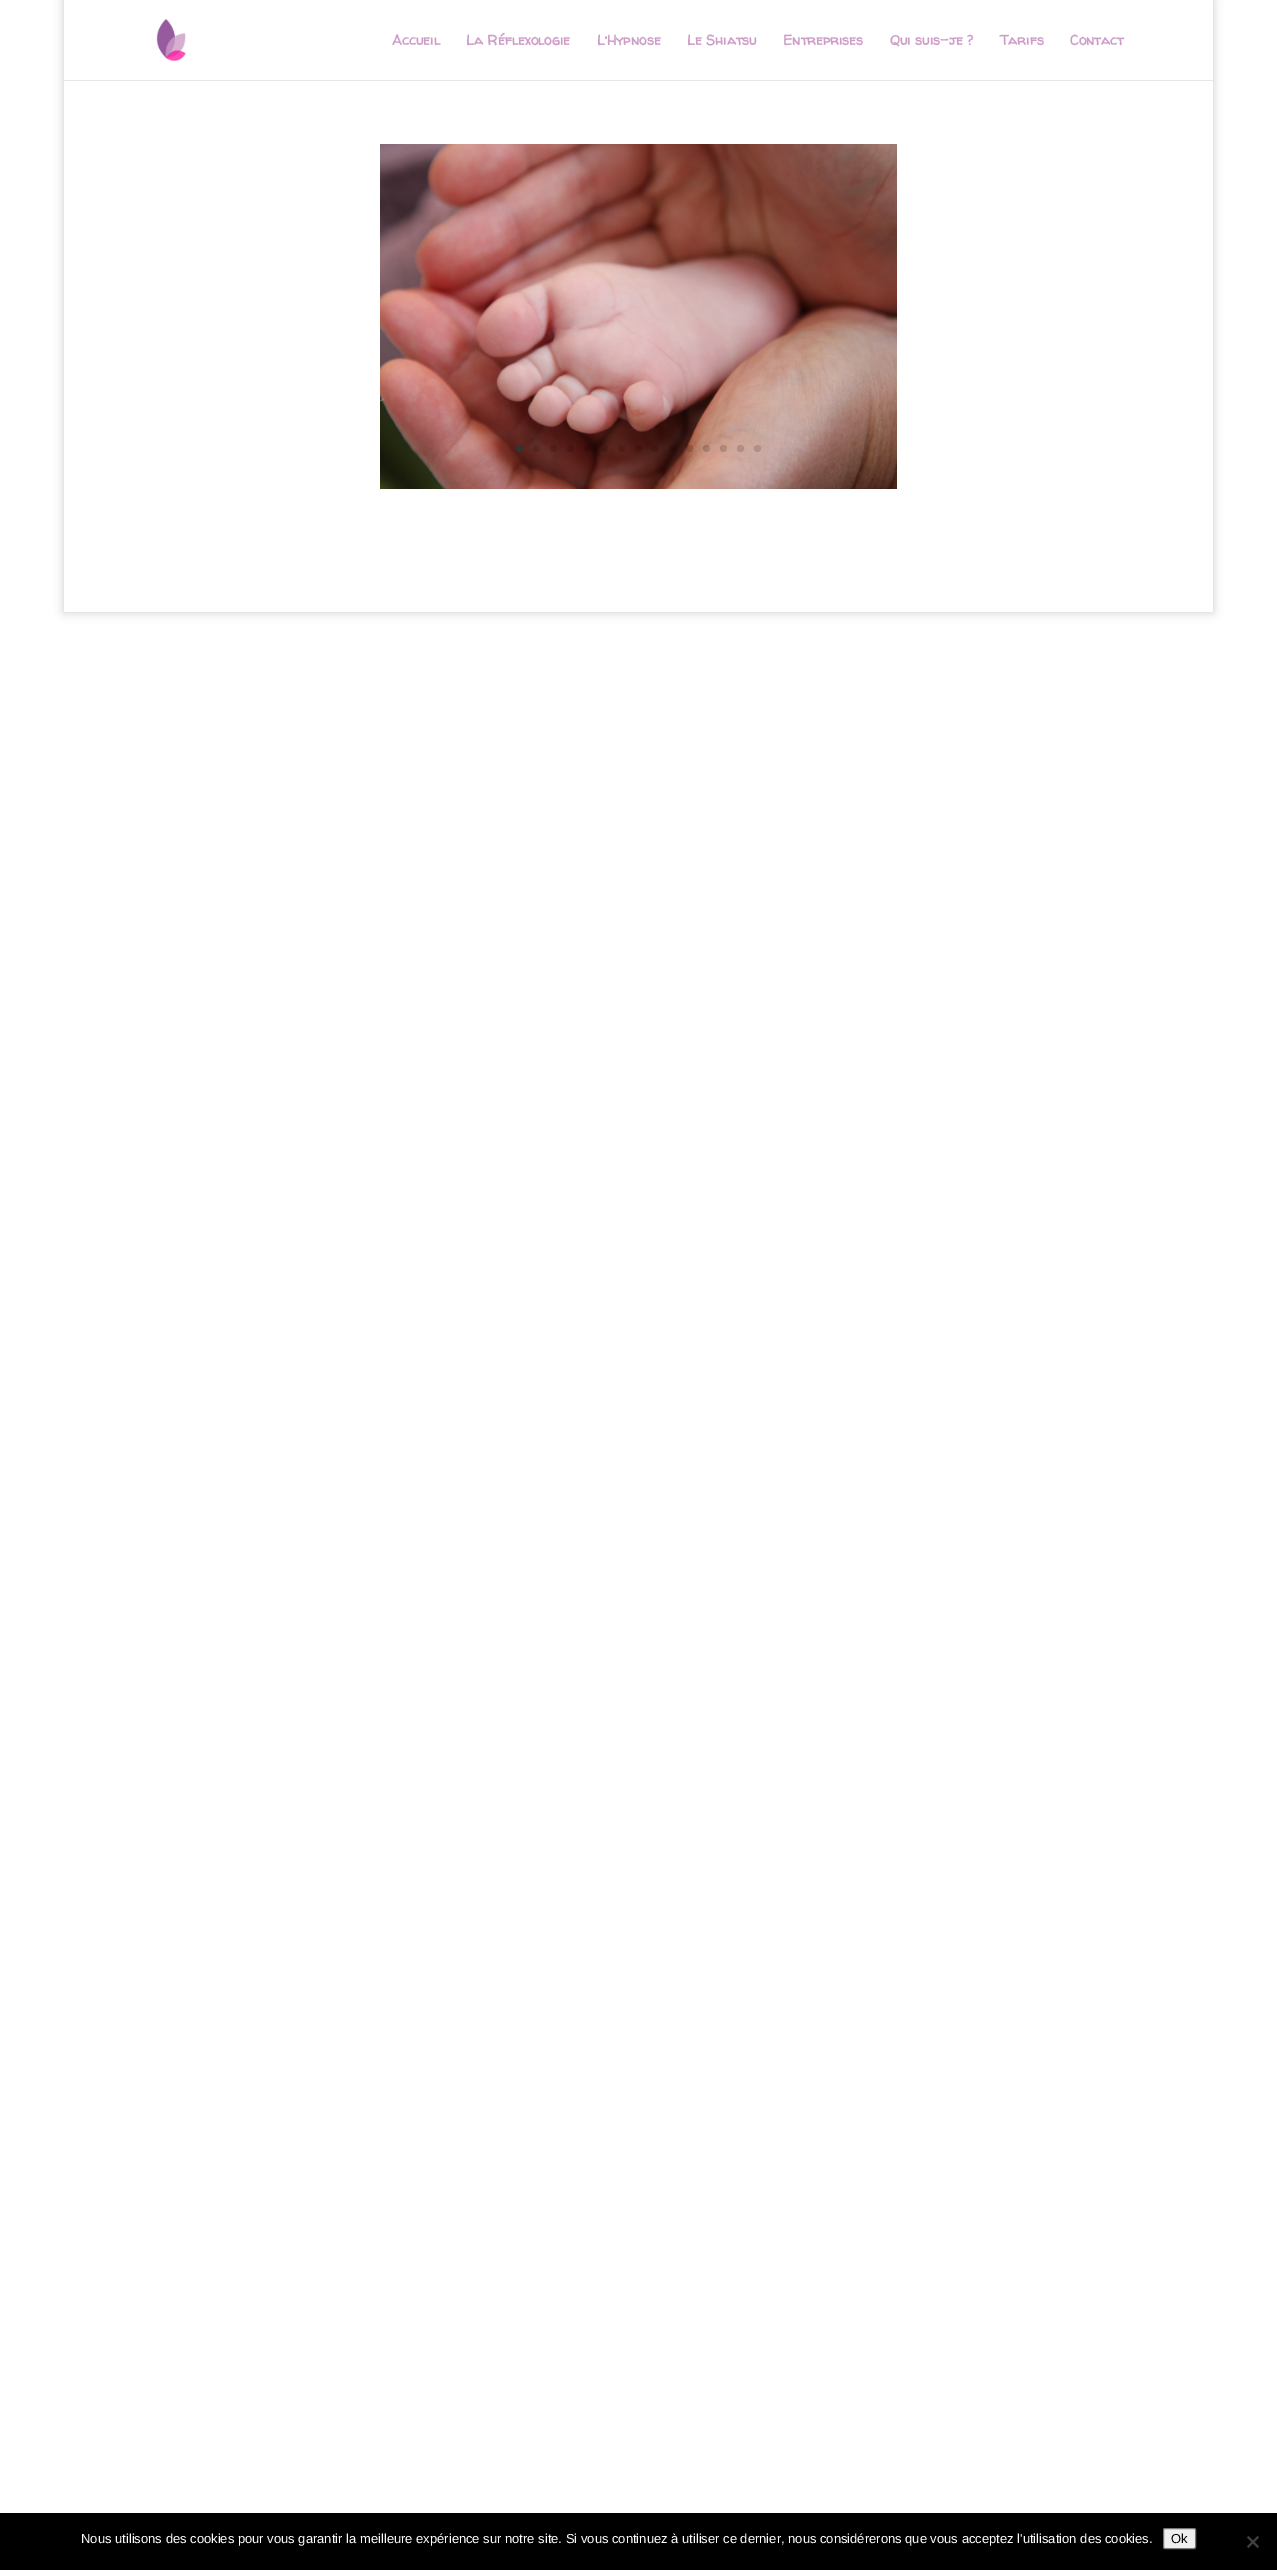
%!PS-Adobe-3.0
%%BoundingBox: 0 0 1277 2570
%%LanguageLevel: 3
%%Pages: 1
%%EndComments
%%BeginProlog
/m { moveto } bind def
/l { lineto } bind def
/h { closepath } bind def
/f { fill } bind def
/S { stroke } bind def
/q { gsave } bind def
/Q { grestore } bind def
/fn { [ exch dup neg 0 0 3 -1 roll 0 0 ] selectfont } def
/tx { moveto show } def
/bx { rectfill } def
/al { dup .setfillconstantalpha .setstrokeconstantalpha } def
/ci { newpath 0 360 arc closepath } def
/rr { 5 dict begin { /r /h /w /y /x } { exch def } forall
  x r add y moveto x w add y 2 copy h add r arct x w add y h add x 1 index r arct
  x y h add x y r arct x y 2 copy exch w add exch r arct closepath end } def
/sh { 12 dict begin { /a /b /q /h /w /y /x } { exch def } forall gsave /was 0 def
  9 -2 -9 { dup b mul 4 div /e exch def 1 sub .425 mul 2.718 exch exp 1 add a .99 .min exch div /now exch def
    1 1 now sub 1 was sub div sub al /was now def
    w h .min e 2 mul add 0 gt { x e sub y e sub w e 2 mul add h e 2 mul add
      q e add b .6 mul add w h .min 2 div e add .min 0 .max rr fill } if } for grestore end } def
/im { 5 dict begin { /h /w /y /x /name } { exch def } forall
  gsave x y translate w h scale
  w h 8 [w 0 0 h 0 0] name (r) file false 3 colorimage grestore end } def
%%EndProlog
%%BeginSetup
<< /PageSize [1277 2570] /PageUsesTransparency true >> setpagedevice
%%EndSetup
%%Page: 1 1
0 .pushpdf14devicefilter
0 2570 translate 1 -1 scale
4 setmiterlimit
1 setgray
0 0 1277 2570 bx
q
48 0 m 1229 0 l 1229 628 l 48 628 l h 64 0 m 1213 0 l 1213 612 l 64 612 l h eoclip newpath
0 setgray
64 0 1149 612 0 5 0.2 sh
Q
0.902 setgray
64 80 1149 1 bx
(image0.raw) 156 19 30 43 im
/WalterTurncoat-Bold 14 fn
0.804 0.616 0.784 setrgbcolor
(Accueil) 392 45 tx
(La Réflexologie) 466 45 tx
(L’Hypnose) 597 45 tx
(Le Shiatsu) 687 45 tx
(Entreprises) 783 45 tx
(Qui suis-je ?) 890 45 tx
(Tarifs) 1000 45 tx
(Contact) 1070 45 tx
(image1.raw) 380 144 517 345 im
0.2 setgray
519.5 448.5 3.5 ci f
0.15 al
0 setgray
536.5 448.5 3.5 ci f
553.5 448.5 3.5 ci f
570.5 448.5 3.5 ci f
587.5 448.5 3.5 ci f
604.5 448.5 3.5 ci f
621.5 448.5 3.5 ci f
638.5 448.5 3.5 ci f
655.5 448.5 3.5 ci f
672.5 448.5 3.5 ci f
689.5 448.5 3.5 ci f
706.5 448.5 3.5 ci f
723.5 448.5 3.5 ci f
740.5 448.5 3.5 ci f
757.5 448.5 3.5 ci f
1 al
0 2513 1277 57 bx
/LiberationSans-Regular 13 fn
1 setgray
(Nous utilisons des cookies pour vous garantir la meilleure expérience sur notre site. Si vous continuez à utiliser ce dernier, nous considérerons que vous acceptez l'utilisation des cookies.) 81 2543 tx
0.937 setgray
1163.5 2528.5 32 20 1.5 rr q f Q
0.463 setgray
S
0 setgray
(Ok) 1171 2543 tx
0.251 setgray
1257.5 2536 m 1259 2537.5 l 1248.5 2548 l 1247 2546.5 l h f
1247 2537.5 m 1248.5 2536 l 1259 2546.5 l 1257.5 2548 l h f
.poppdf14devicefilter showpage
%%EOF
